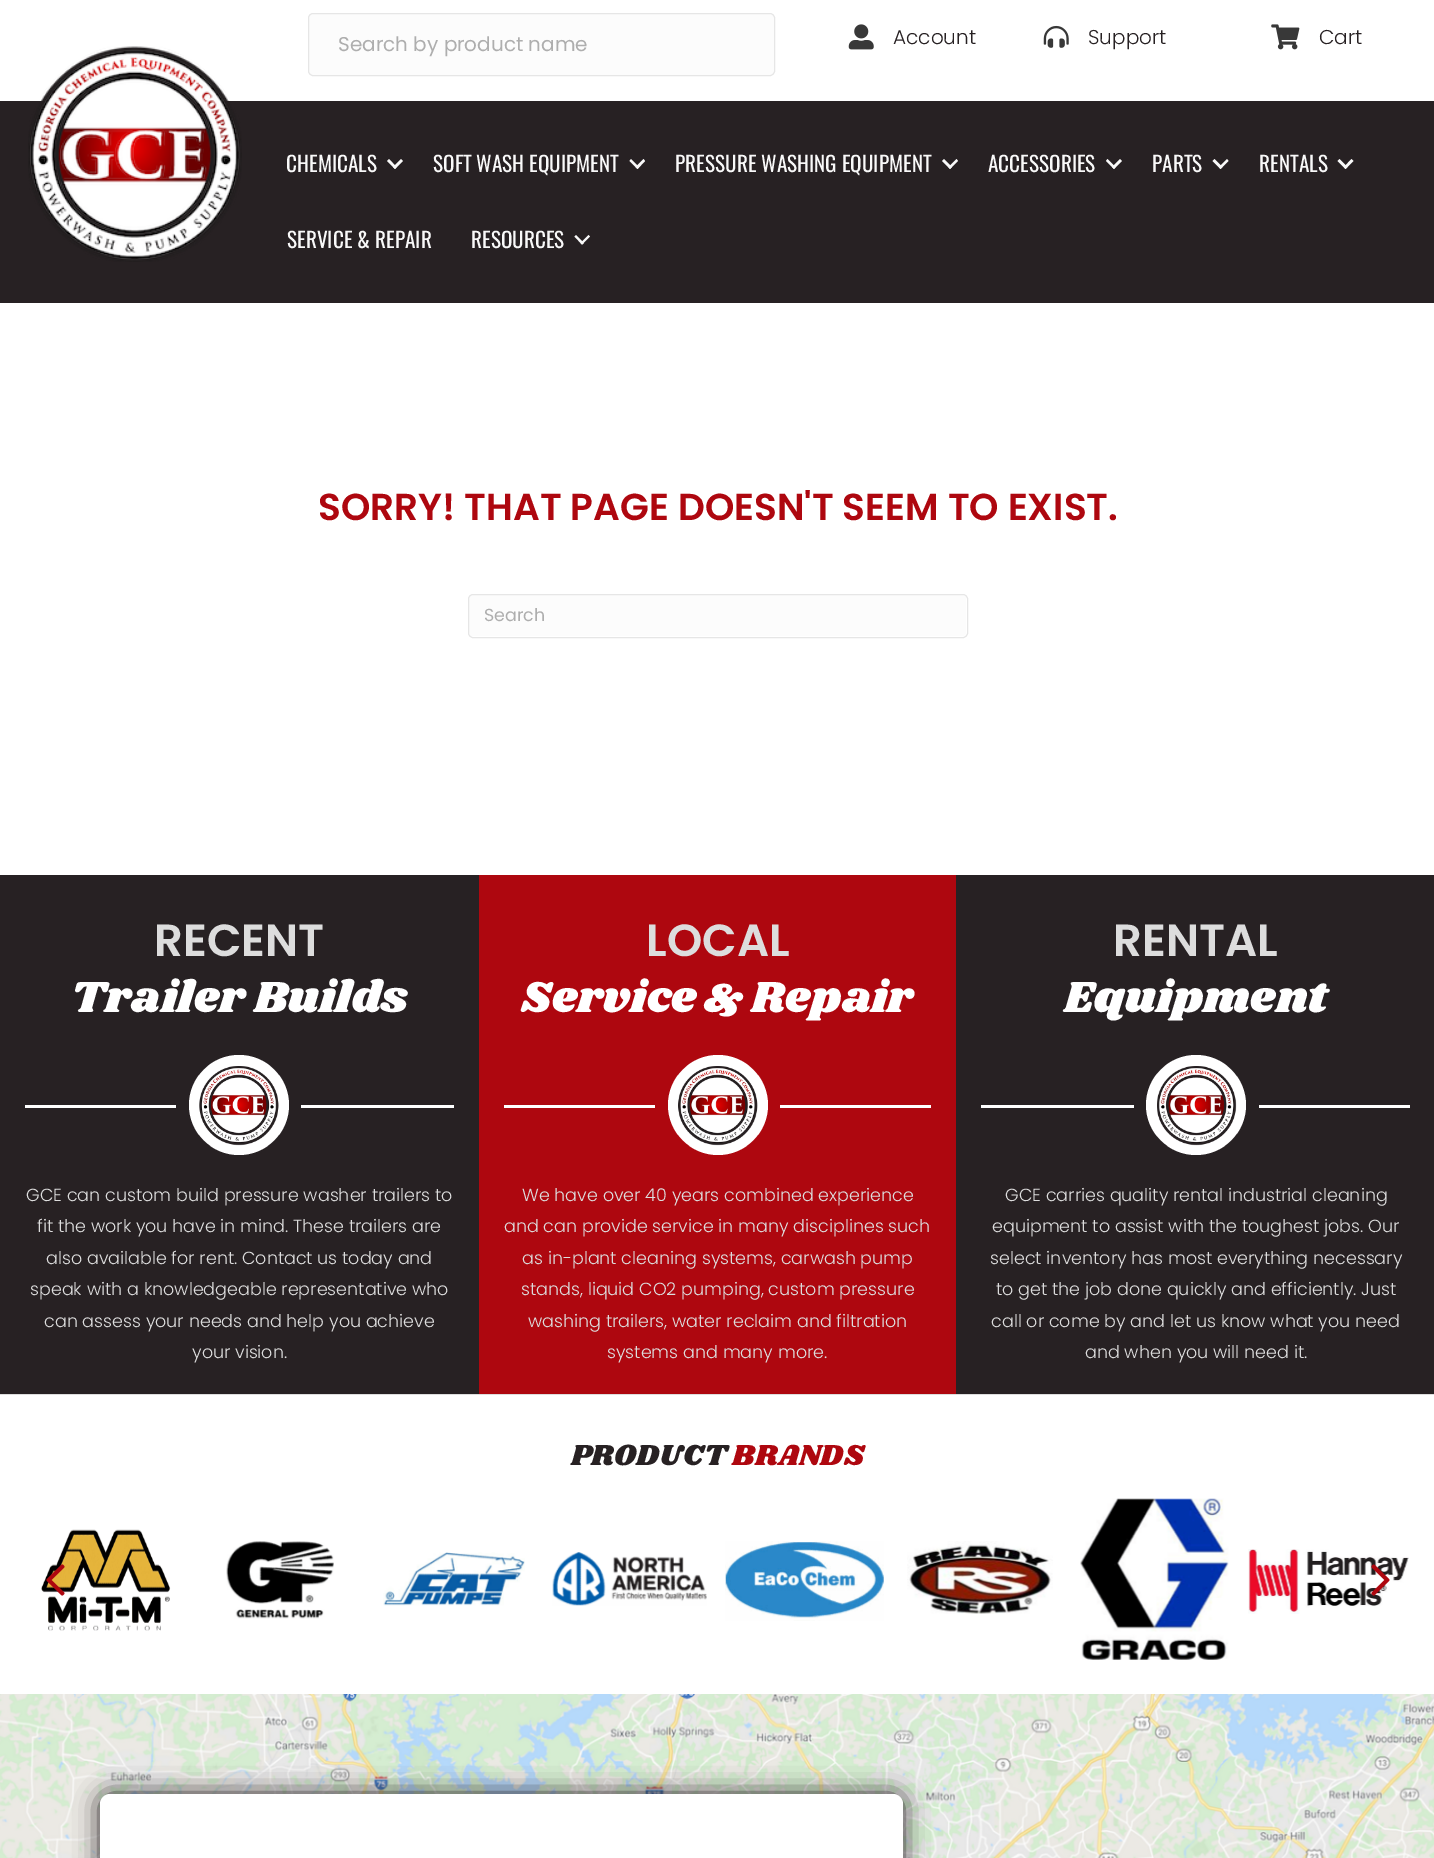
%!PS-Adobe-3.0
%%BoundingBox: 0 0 1434 1858
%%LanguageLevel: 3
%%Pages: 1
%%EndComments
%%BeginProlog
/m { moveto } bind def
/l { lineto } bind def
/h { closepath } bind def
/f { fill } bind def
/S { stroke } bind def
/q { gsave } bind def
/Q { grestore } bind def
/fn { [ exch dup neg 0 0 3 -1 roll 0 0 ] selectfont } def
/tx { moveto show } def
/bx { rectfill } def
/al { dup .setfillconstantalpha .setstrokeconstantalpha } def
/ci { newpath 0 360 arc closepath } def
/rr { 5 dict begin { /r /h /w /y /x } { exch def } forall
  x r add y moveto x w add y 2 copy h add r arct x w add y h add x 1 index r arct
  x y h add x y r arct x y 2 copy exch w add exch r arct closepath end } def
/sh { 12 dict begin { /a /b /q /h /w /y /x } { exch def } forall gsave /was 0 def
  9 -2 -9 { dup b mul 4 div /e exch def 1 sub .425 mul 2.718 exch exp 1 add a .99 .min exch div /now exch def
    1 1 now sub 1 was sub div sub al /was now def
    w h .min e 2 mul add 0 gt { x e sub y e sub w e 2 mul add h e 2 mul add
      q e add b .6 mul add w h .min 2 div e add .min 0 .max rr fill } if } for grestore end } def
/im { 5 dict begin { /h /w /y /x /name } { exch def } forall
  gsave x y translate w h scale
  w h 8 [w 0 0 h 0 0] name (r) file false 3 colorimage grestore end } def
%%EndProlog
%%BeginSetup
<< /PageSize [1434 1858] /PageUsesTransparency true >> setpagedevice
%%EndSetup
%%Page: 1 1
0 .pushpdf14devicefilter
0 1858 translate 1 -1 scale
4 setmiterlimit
1 setgray
0 0 1434 1858 bx
0.988 setgray
308.5 13.5 466 62 4.5 rr q f Q
0.902 setgray
S
/Poppins-Regular 20 fn
0.682 setgray
(Search by product name) 338 51 tx
(image0.raw) 848 24 26 26 im
/Poppins-Light 20 fn
0.153 0.129 0.137 setrgbcolor
(Account) 893 44 tx
(image1.raw) 1043 25 26 23 im
(Support) 1088 44 tx
(image2.raw) 1271 24 29 26 im
(Cart) 1319 44 tx
0 101 1434 202 bx
(image3.raw) 28 46 214 216 im
/Oswald-Regular 21.25 fn
0.976 setgray
(CHEMICALS) 286 172 tx
401 159 m 403 161 l 395 169 l 393 167 l h f
389 159 m 396.5 167 l 395 169 l 387 161 l h f
(SOFT WASH EQUIPMENT) 433 172 tx
643.5 159 m 645 161 l 637.5 169 l 635.5 167 l h f
631 159 m 639 167 l 637.5 169 l 629.5 161 l h f
(PRESSURE WASHING EQUIPMENT) 675 172 tx
956.5 159 m 958 161 l 950 169 l 948.5 167 l h f
944 159 m 952 167 l 950 169 l 942 161 l h f
(ACCESSORIES) 988 172 tx
1120 159 m 1122 161 l 1114 169 l 1112 167 l h f
1107.5 159 m 1115.5 167 l 1114 169 l 1106 161 l h f
(PARTS) 1152 172 tx
1227 159 m 1228.5 161 l 1220.5 169 l 1219 167 l h f
1214.5 159 m 1222.5 167 l 1220.5 169 l 1212.5 161 l h f
(RENTALS) 1259 172 tx
1351.5 159 m 1353.5 161 l 1345.5 169 l 1344 167 l h f
1339.5 159 m 1347.5 167 l 1345.5 169 l 1337.5 161 l h f
(SERVICE & REPAIR) 287 248 tx
(RESOURCES) 471 248 tx
588.5 235 m 590 236.5 l 582 244.5 l 580.5 243 l h f
576 235 m 584 243 l 582 244.5 l 574.5 236.5 l h f
/Poppins-SemiBold 37.5 fn
0.682 0.027 0.059 setrgbcolor
(SORRY! THAT PAGE DOESN'T SEEM TO EXIST.) 318 520 tx
0.988 setgray
469 595 497 41 4 rr f
0.902 setgray
468.5 594.5 499 43 4.5 rr S
/Poppins-Regular 17.5 fn
0.682 setgray
(Search) 484 621 tx
0.867 setgray
0 1394 1434 1 bx
0.153 0.129 0.137 setrgbcolor
0 875 479 519 bx
/Poppins-SemiBold 45 fn
0.867 setgray
(RECENT) 154 956 tx
/Shrikhand-Regular 45 fn
1 setgray
(Trailer Builds) 71 1012 tx
25 1105 151 3 bx
239 1105 50 ci f
(image4.raw) 199 1066 80 80 im
301 1105 153 3 bx
/Poppins-Light 17.5 fn
0.867 setgray
(GCE can custom build pressure washer trailers to) 26 1201 tx
(fit the work you have in mind. These trailers are) 37 1232 tx
(also available for rent. Contact us today and) 46 1264 tx
(speak with a knowledgeable representative who) 30 1295 tx
(can assess your needs and help you achieve) 44 1327 tx
(your vision.) 192 1358 tx
0.682 0.027 0.059 setrgbcolor
479 875 477 519 bx
/Poppins-SemiBold 45 fn
0.867 setgray
(LOCAL) 646 956 tx
/Shrikhand-Regular 45 fn
1 setgray
(Service & Repair) 521 1012 tx
504 1105 151 3 bx
718 1105 50 ci f
(image5.raw) 678 1066 80 80 im
780 1105 151 3 bx
/Poppins-Light 17.5 fn
0.867 setgray
(We have over 40 years combined experience) 522 1201 tx
(and can provide service in many disciplines such) 504 1232 tx
(as in-plant cleaning systems, carwash pump) 522 1264 tx
(stands, liquid CO2 pumping, custom pressure) 521 1295 tx
(washing trailers, water reclaim and filtration) 528 1327 tx
(systems and many more.) 607 1358 tx
0.153 0.129 0.137 setrgbcolor
956 875 478 519 bx
/Poppins-SemiBold 45 fn
0.867 setgray
(RENTAL) 1113 956 tx
/Shrikhand-Regular 45 fn
1 setgray
(Equipment) 1064 1012 tx
981 1105 153 3 bx
1196 1105 50 ci f
(image6.raw) 1157 1066 80 80 im
1259 1105 151 3 bx
/Poppins-Light 17.5 fn
0.867 setgray
(GCE carries quality rental industrial cleaning) 1005 1201 tx
(equipment to assist with the toughest jobs. Our) 992 1232 tx
(select inventory has most everything necessary) 990 1264 tx
(to get the job done quickly and efficiently. Just) 996 1295 tx
(call or come by and let us know what you need) 991 1327 tx
(and when you will need it.) 1085 1358 tx
/Shrikhand-Regular 30 fn
0.153 0.129 0.137 setrgbcolor
(PRODUCT) 571 1465 tx
0.682 0.027 0.059 setrgbcolor
(BRANDS) 732 1465 tx
(image7.raw) 41 1529 130 102 im
(image8.raw) 226 1541 108 78 im
(image9.raw) 383 1552 142 54 im
(image10.raw) 552 1552 155 54 im
(image11.raw) 725 1541 159 80 im
(image12.raw) 907 1541 146 73 im
(image13.raw) 1080 1498 149 162 im
(image14.raw) 1248 1549 161 65 im
(image15.raw) 46 1564 19 32 im
(image16.raw) 1371 1564 19 32 im
(image17.raw) 0 1694 1434 164 im
0.153 0.129 0.137 setrgbcolor
100 1794 803 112 10 12.5 1 sh
1 setgray
100 1794 803 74 10 rr f
.poppdf14devicefilter showpage
%%EOF
